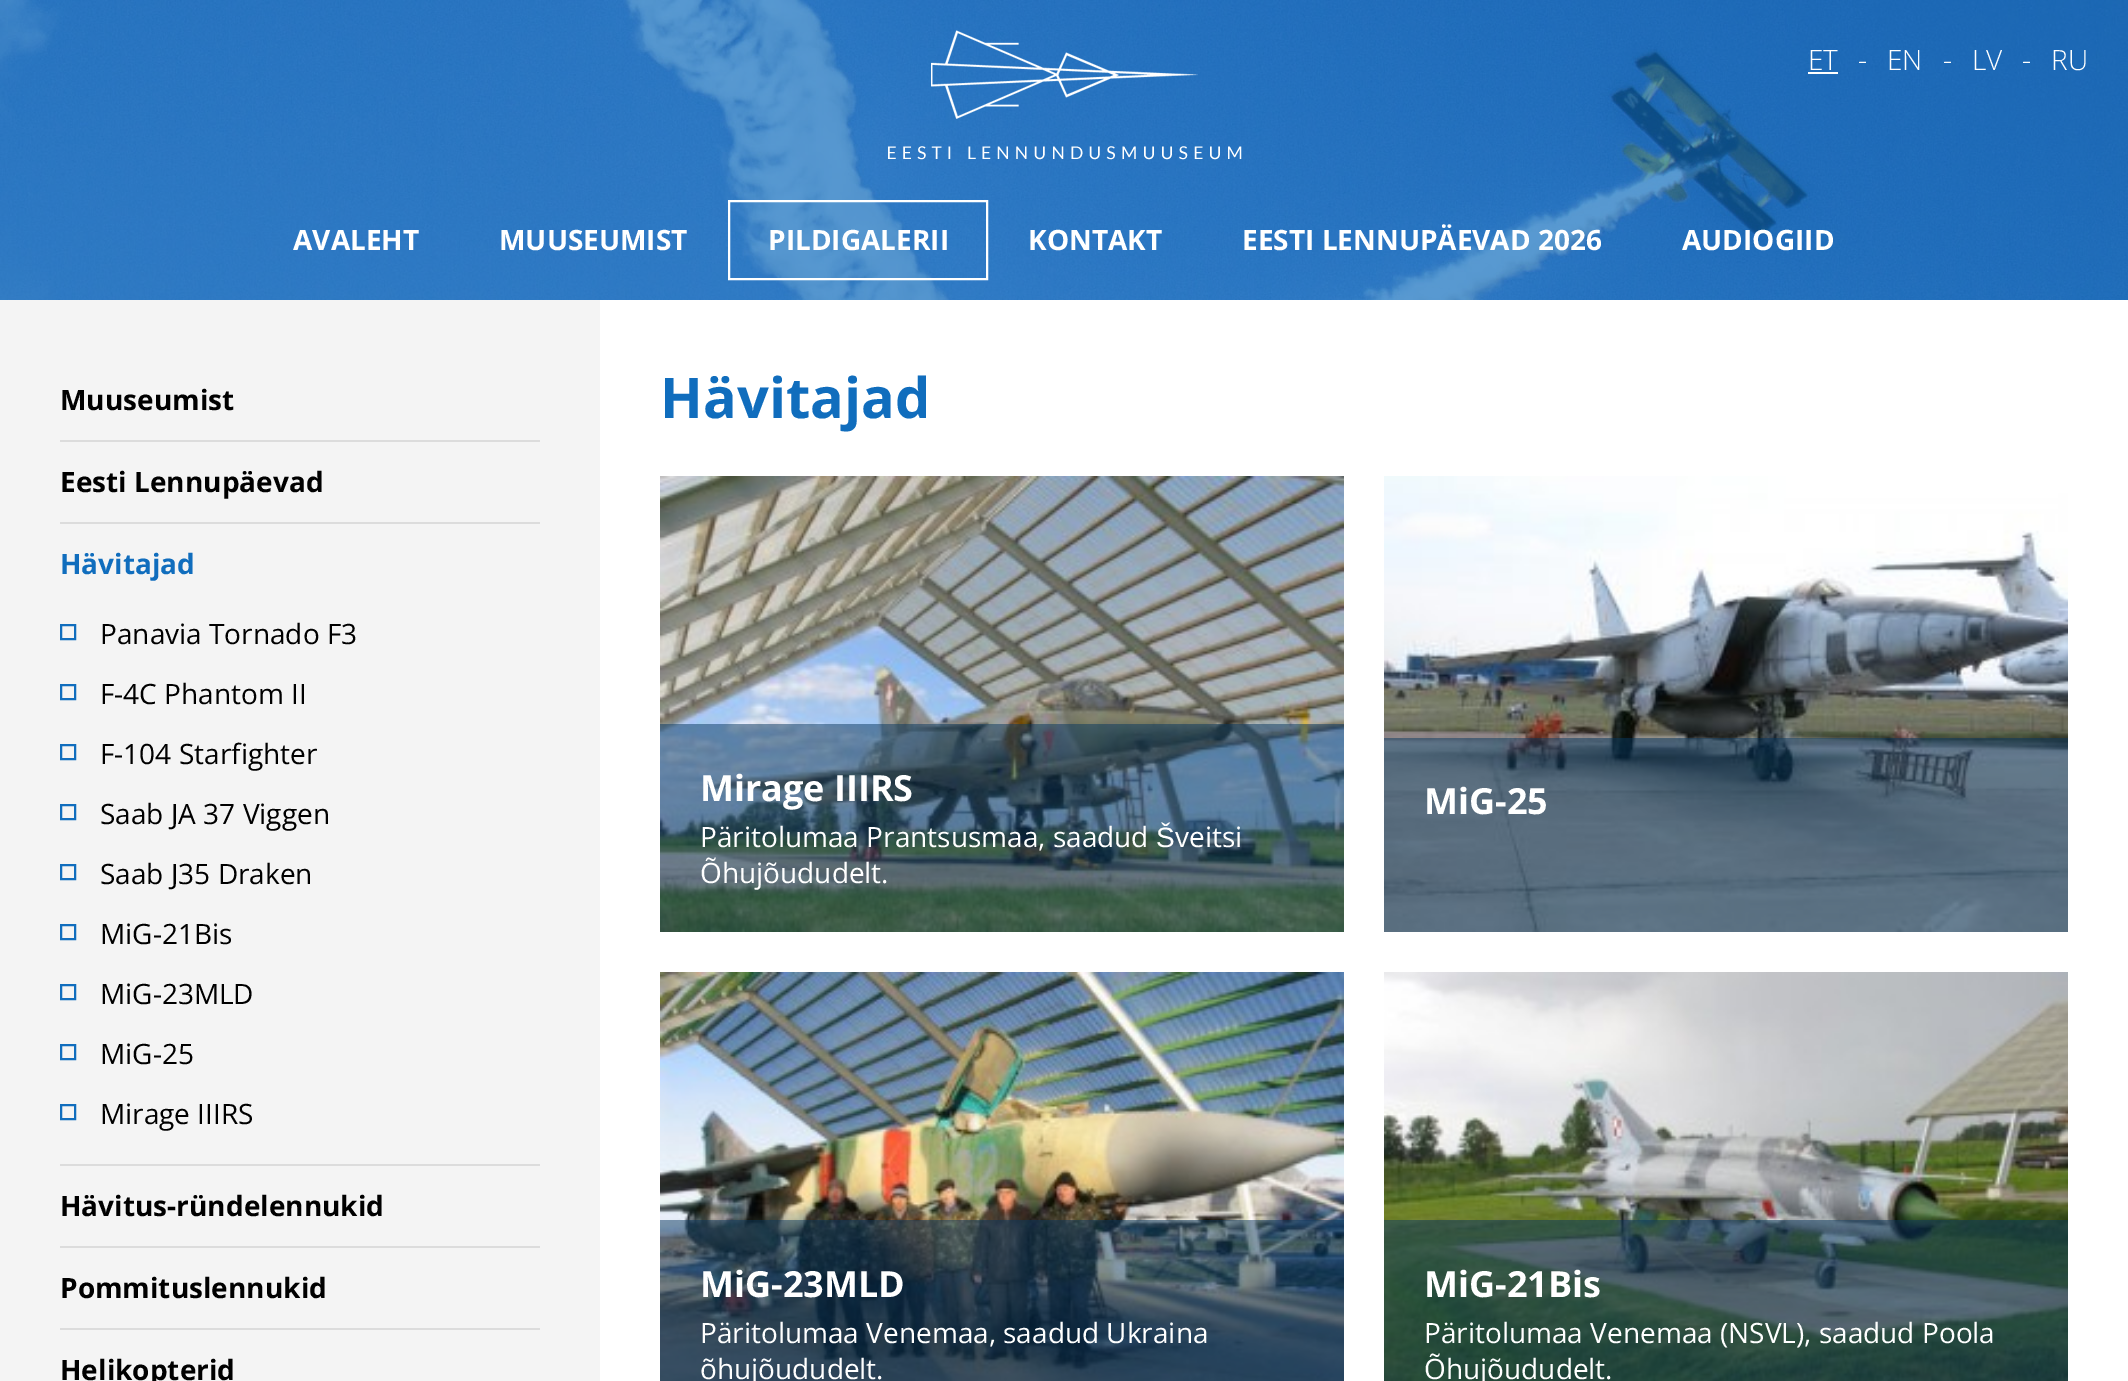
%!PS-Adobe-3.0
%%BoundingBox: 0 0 2128 1381
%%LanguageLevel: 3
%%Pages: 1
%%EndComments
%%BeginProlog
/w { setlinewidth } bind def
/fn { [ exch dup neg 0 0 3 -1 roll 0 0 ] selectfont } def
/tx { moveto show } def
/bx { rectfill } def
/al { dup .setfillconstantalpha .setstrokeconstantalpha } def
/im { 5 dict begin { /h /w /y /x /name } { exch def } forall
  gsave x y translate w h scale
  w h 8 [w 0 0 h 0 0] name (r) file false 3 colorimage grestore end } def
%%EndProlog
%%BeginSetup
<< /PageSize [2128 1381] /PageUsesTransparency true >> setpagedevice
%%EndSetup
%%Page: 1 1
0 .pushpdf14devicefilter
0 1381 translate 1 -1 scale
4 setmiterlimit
1 setgray
0 0 2128 1381 bx
(image0.raw) 0 0 2128 300 im
(image1.raw) 888 30 354 130 im
/OpenSans-Light 28 fn
(ET) 1808 70 tx
1808 72 30 2 bx
(-) 1858 70 tx
(EN) 1887 70 tx
(-) 1943 70 tx
(LV) 1972 70 tx
(-) 2022 70 tx
(RU) 2051 70 tx
/OpenSans-Bold 28 fn
(AVALEHT) 293 250 tx
(MUUSEUMIST) 499 250 tx
2 w
729 201 258 78 rectstroke
(PILDIGALERII) 768 250 tx
(KONTAKT) 1028 250 tx
(EESTI LENNUPÄEVAD 2026) 1242 250 tx
(AUDIOGIID) 1682 250 tx
0.957 setgray
0 300 600 1081 bx
0.863 setgray
60 440 480 2 bx
0 setgray
(Muuseumist) 60 410 tx
0.863 setgray
60 522 480 2 bx
0 setgray
(Eesti Lennupäevad) 60 492 tx
0.863 setgray
60 1164 480 2 bx
0.063 0.427 0.741 setrgbcolor
(Hävitajad) 60 574 tx
61 625 14 14 rectstroke
/OpenSans-Regular 28 fn
0 setgray
(Panavia Tornado F3) 100 644 tx
0.063 0.427 0.741 setrgbcolor
61 685 14 14 rectstroke
0 setgray
(F-4C Phantom II) 100 704 tx
0.063 0.427 0.741 setrgbcolor
61 745 14 14 rectstroke
0 setgray
(F-104 Starfighter) 100 764 tx
0.063 0.427 0.741 setrgbcolor
61 805 14 14 rectstroke
0 setgray
(Saab JA 37 Viggen) 100 824 tx
0.063 0.427 0.741 setrgbcolor
61 865 14 14 rectstroke
0 setgray
(Saab J35 Draken) 100 884 tx
0.063 0.427 0.741 setrgbcolor
61 925 14 14 rectstroke
0 setgray
(MiG-21Bis) 100 944 tx
0.063 0.427 0.741 setrgbcolor
61 985 14 14 rectstroke
0 setgray
(MiG-23MLD) 100 1004 tx
0.063 0.427 0.741 setrgbcolor
61 1045 14 14 rectstroke
0 setgray
(MiG-25) 100 1064 tx
0.063 0.427 0.741 setrgbcolor
61 1105 14 14 rectstroke
0 setgray
(Mirage IIIRS) 100 1124 tx
0.863 setgray
60 1246 480 2 bx
/OpenSans-Bold 28 fn
0 setgray
(Hävitus-ründelennukid) 60 1216 tx
0.863 setgray
60 1328 480 2 bx
0 setgray
(Pommituslennukid) 60 1298 tx
(Helikopterid) 60 1380 tx
/OpenSans-Bold 56 fn
0.063 0.427 0.741 setrgbcolor
(Hävitajad) 660 418 tx
(image2.raw) 660 476 684 456 im
0.5 al
0.031 0.216 0.373 setrgbcolor
660 724 684 208 bx
/OpenSans-Bold 36 fn
1 al
1 setgray
(Mirage IIIRS) 700 801 tx
/OpenSans-Regular 28 fn
(Päritolumaa Prantsusmaa, saadud) 700 847 tx
/LiberationSans-Regular 28 fn
(Š) 1156 847 tx
/OpenSans-Regular 28 fn
(veitsi) 1175 847 tx
(Õhujõududelt.) 700 883 tx
(image3.raw) 1384 476 684 456 im
0.5 al
0.031 0.216 0.373 setrgbcolor
1384 738 684 194 bx
/OpenSans-Bold 36 fn
1 al
1 setgray
(MiG-25) 1424 814 tx
(image4.raw) 660 972 684 409 im
0.5 al
0.031 0.216 0.373 setrgbcolor
660 1220 684 161 bx
1 al
1 setgray
(MiG-23MLD) 700 1297 tx
/OpenSans-Regular 28 fn
(Päritolumaa Venemaa, saadud Ukraina) 700 1343 tx
(õhujõududelt.) 700 1379 tx
(image5.raw) 1384 972 684 409 im
0.5 al
0.031 0.216 0.373 setrgbcolor
1384 1220 684 161 bx
/OpenSans-Bold 36 fn
1 al
1 setgray
(MiG-21Bis) 1424 1297 tx
/OpenSans-Regular 28 fn
(Päritolumaa Venemaa \(NSVL\), saadud Poola) 1424 1343 tx
(Õhujõududelt.) 1424 1379 tx
.poppdf14devicefilter showpage
%%EOF
